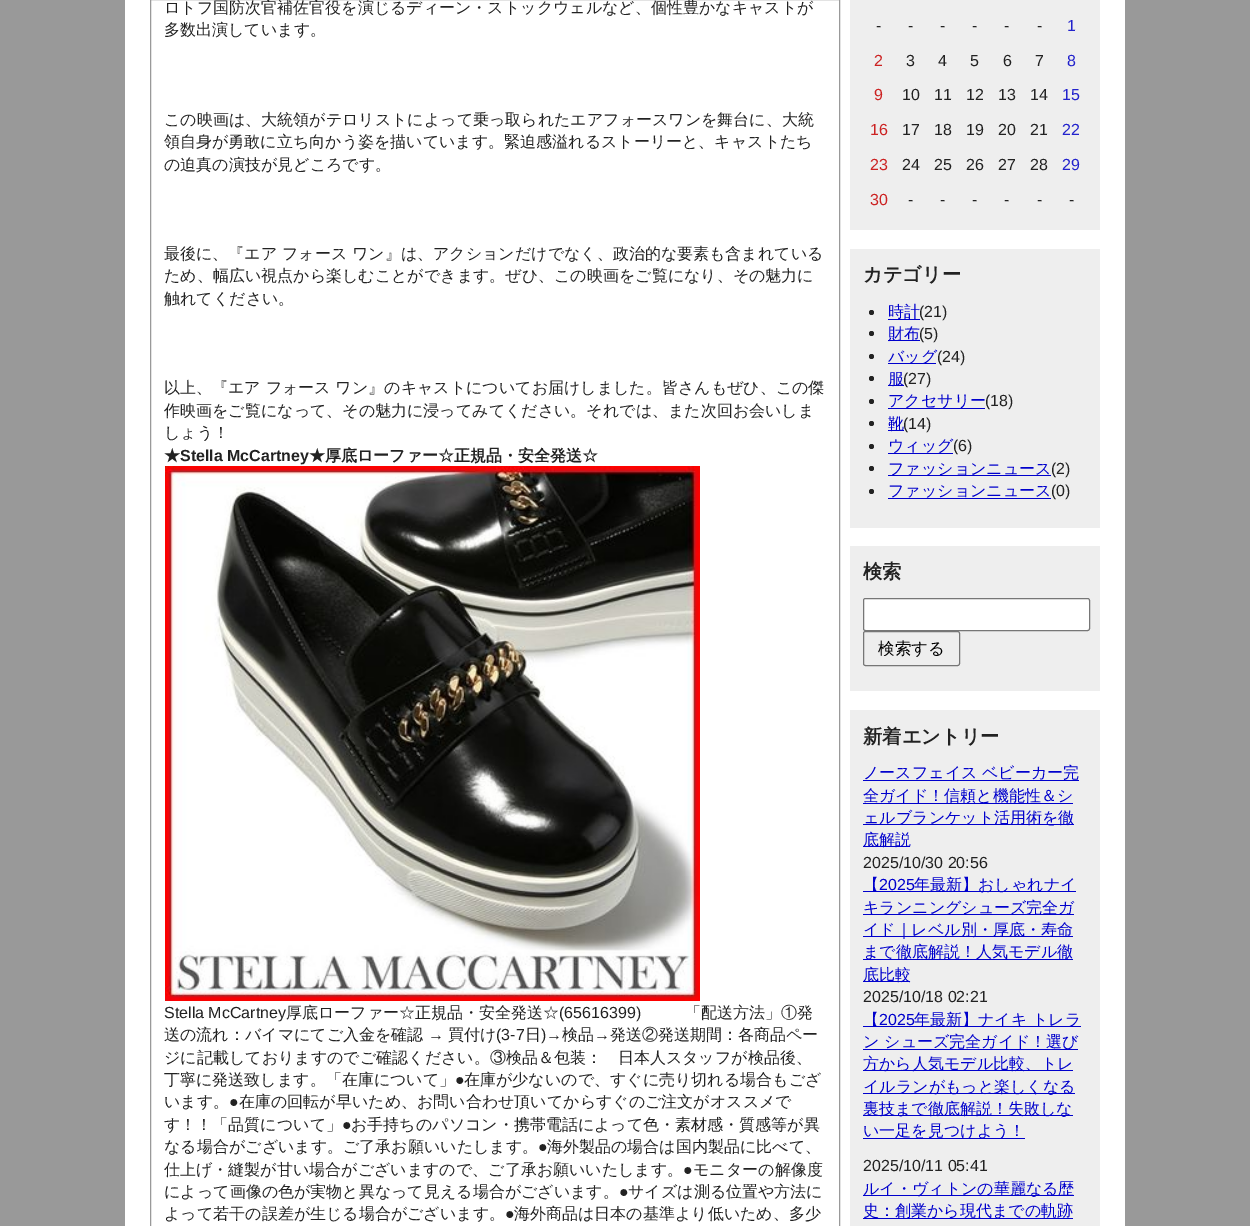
%!PS-Adobe-3.0
%%BoundingBox: 0 0 1250 1226
%%LanguageLevel: 3
%%Pages: 1
%%EndComments
%%BeginProlog
/f { fill } bind def
/S { stroke } bind def
/q { gsave } bind def
/Q { grestore } bind def
/fn { [ exch dup neg 0 0 3 -1 roll 0 0 ] selectfont } def
/tx { moveto show } def
/bx { rectfill } def
/ci { newpath 0 360 arc closepath } def
/rr { 5 dict begin { /r /h /w /y /x } { exch def } forall
  x r add y moveto x w add y 2 copy h add r arct x w add y h add x 1 index r arct
  x y h add x y r arct x y 2 copy exch w add exch r arct closepath end } def
/im { 5 dict begin { /h /w /y /x /name } { exch def } forall
  gsave x y translate w h scale
  w h 8 [w 0 0 h 0 0] name (r) file false 3 colorimage grestore end } def
%%EndProlog
%%BeginSetup
<< /PageSize [1250 1226] >> setpagedevice
%%EndSetup
%%Page: 1 1
0 1226 translate 1 -1 scale
4 setmiterlimit
0.6 setgray
0 0 1250 1226 bx
1 setgray
125 0 1000 1226 bx
0.6 setgray
150.5 -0.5 689 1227 rectstroke
/WenQuanYiZenHei-Medium 16 fn
0.133 setgray
(ロトフ国防次官補佐官役を演じるディーン・ストックウェルなど、個性豊かなキャストが) 164 13 tx
(多数出演しています。) 164 35 tx
(この映画は、大統領がテロリストによって乗っ取られたエアフォースワンを舞台に、大統) 164 125 tx
(領自身が勇敢に立ち向かう姿を描いています。緊迫感溢れるストーリーと、キャストたち) 164 147 tx
(の迫真の演技が見どころです。) 164 170 tx
(最後に、『エア フォース ワン』は、アクションだけでなく、政治的な要素も含まれている) 164 259 tx
(ため、幅広い視点から楽しむことができます。ぜひ、この映画をご覧になり、その魅力に) 164 281 tx
(触れてください。) 164 304 tx
(以上、『エア フォース ワン』のキャストについてお届けしました。皆さんもぜひ、この傑) 164 393 tx
(作映画をご覧になって、その魅力に浸ってみてください。それでは、また次回お会いしま) 164 416 tx
(しょう！) 164 438 tx
/WenQuanYiZenHei-Bold 16 fn
(★) 164 461 tx
/LiberationSans-Bold 16 fn
(Stella McCartney) 180 461 tx
/WenQuanYiZenHei-Bold 16 fn
(★厚底ローファー☆正規品・安全発送☆) 309 461 tx
(image0.raw) 165 466 535 535 im
/LiberationSans-Regular 16 fn
(Stella McCartney) 164 1018 tx
/WenQuanYiZenHei-Medium 16 fn
(厚底ローファー☆正規品・安全発送☆) 286 1018 tx
/LiberationSans-Regular 16 fn
(\(65616399\)) 559 1018 tx
/WenQuanYiZenHei-Medium 16 fn
(「配送方法」①発) 685 1018 tx
(送の流れ：バイマにてご入金を確認) 164 1040 tx
/LiberationSans-Regular 16 fn
(→) 428 1040 tx
/WenQuanYiZenHei-Medium 16 fn
(買付け) 448 1040 tx
/LiberationSans-Regular 16 fn
(\(3‐7) 496 1040 tx
/WenQuanYiZenHei-Medium 16 fn
(日) 525 1040 tx
/LiberationSans-Regular 16 fn
(\)→) 541 1040 tx
/WenQuanYiZenHei-Medium 16 fn
(検品) 562 1040 tx
/LiberationSans-Regular 16 fn
(→) 594 1040 tx
/WenQuanYiZenHei-Medium 16 fn
(発送②発送期間：各商品ペー) 610 1040 tx
(ジに記載しておりますのでご確認ください。③検品＆包装：　日本人スタッフが検品後、) 164 1063 tx
(丁寧に発送致します。「在庫について」) 164 1085 tx
/LiberationSans-Regular 16 fn
(●) 455 1085 tx
/WenQuanYiZenHei-Medium 16 fn
(在庫が少ないので、すぐに売り切れる場合もござ) 464 1085 tx
(います。) 164 1107 tx
/LiberationSans-Regular 16 fn
(●) 229 1107 tx
/WenQuanYiZenHei-Medium 16 fn
(在庫の回転が早いため、お問い合わせ頂いてからすぐのご注文がオススメで) 239 1107 tx
(す！！「品質について」) 164 1130 tx
/LiberationSans-Regular 16 fn
(●) 342 1130 tx
/WenQuanYiZenHei-Medium 16 fn
(お手持ちのパソコン・携帯電話によって色・素材感・質感等が異) 351 1130 tx
(なる場合がございます。ご了承お願いいたします。) 164 1152 tx
/LiberationSans-Regular 16 fn
(●) 538 1152 tx
/WenQuanYiZenHei-Medium 16 fn
(海外製品の場合は国内製品に比べて、) 547 1152 tx
(仕上げ・縫製が甘い場合がございますので、ご了承お願いいたします。) 164 1175 tx
/LiberationSans-Regular 16 fn
(●) 683 1175 tx
/WenQuanYiZenHei-Medium 16 fn
(モニターの解像度) 693 1175 tx
(によって画像の色が実物と異なって見える場合がございます。) 164 1197 tx
/LiberationSans-Regular 16 fn
(●) 619 1197 tx
/WenQuanYiZenHei-Medium 16 fn
(サイズは測る位置や方法に) 628 1197 tx
(よって若干の誤差が生じる場合がございます。) 164 1219 tx
/LiberationSans-Regular 16 fn
(●) 505 1219 tx
/WenQuanYiZenHei-Medium 16 fn
(海外商品は日本の基準より低いため、多少) 514 1219 tx
0.933 setgray
850 0 250 230 bx
/LiberationSans-Regular 16 fn
0.133 setgray
(-) 876 31 tx
(-) 908 31 tx
(-) 940 31 tx
(-) 972 31 tx
(-) 1004 31 tx
(-) 1037 31 tx
0.133 0.133 0.8 setrgbcolor
(1) 1067 31 tx
0.8 0.133 0.133 setrgbcolor
(2) 874 66 tx
0.133 setgray
(3) 906 66 tx
(4) 938 66 tx
(5) 970 66 tx
(6) 1003 66 tx
(7) 1035 66 tx
0.133 0.133 0.8 setrgbcolor
(8) 1067 66 tx
0.8 0.133 0.133 setrgbcolor
(9) 874 100 tx
0.133 setgray
(10) 902 100 tx
(11) 934 100 tx
(12) 966 100 tx
(13) 998 100 tx
(14) 1030 100 tx
0.133 0.133 0.8 setrgbcolor
(15) 1062 100 tx
0.8 0.133 0.133 setrgbcolor
(16) 870 135 tx
0.133 setgray
(17) 902 135 tx
(18) 934 135 tx
(19) 966 135 tx
(20) 998 135 tx
(21) 1030 135 tx
0.133 0.133 0.8 setrgbcolor
(22) 1062 135 tx
0.8 0.133 0.133 setrgbcolor
(23) 870 170 tx
0.133 setgray
(24) 902 170 tx
(25) 934 170 tx
(26) 966 170 tx
(27) 998 170 tx
(28) 1030 170 tx
0.133 0.133 0.8 setrgbcolor
(29) 1062 170 tx
0.8 0.133 0.133 setrgbcolor
(30) 870 205 tx
0.133 setgray
(-) 908 205 tx
(-) 940 205 tx
(-) 972 205 tx
(-) 1004 205 tx
(-) 1037 205 tx
(-) 1069 205 tx
0.933 setgray
850 249 250 279 bx
/WenQuanYiZenHei-Bold 19.25 fn
0.133 setgray
(カテゴリー) 863 281 tx
871.5 312.5 2.5 ci f
0 0 0.8 setrgbcolor
888 319 32 1 bx
/WenQuanYiZenHei-Medium 16 fn
(時計) 888 317 tx
/LiberationSans-Regular 16 fn
0.133 setgray
(\(21\)) 919 317 tx
871.5 333.5 2.5 ci f
0 0 0.8 setrgbcolor
888 340 32 1 bx
/WenQuanYiZenHei-Medium 16 fn
(財布) 888 339 tx
/LiberationSans-Regular 16 fn
0.133 setgray
(\(5\)) 919 339 tx
871.5 356.5 2.5 ci f
0 0 0.8 setrgbcolor
888 363 48 1 bx
/WenQuanYiZenHei-Medium 16 fn
(バッグ) 888 362 tx
/LiberationSans-Regular 16 fn
0.133 setgray
(\(24\)) 937 362 tx
871.5 378.5 2.5 ci f
0 0 0.8 setrgbcolor
888 385 16 1 bx
/WenQuanYiZenHei-Medium 16 fn
(服) 888 384 tx
/LiberationSans-Regular 16 fn
0.133 setgray
(\(27\)) 903 384 tx
871.5 401.5 2.5 ci f
0 0 0.8 setrgbcolor
888 408 97 1 bx
/WenQuanYiZenHei-Medium 16 fn
(アクセサリー) 888 406 tx
/LiberationSans-Regular 16 fn
0.133 setgray
(\(18\)) 985 406 tx
871.5 423.5 2.5 ci f
0 0 0.8 setrgbcolor
888 430 16 1 bx
/WenQuanYiZenHei-Medium 16 fn
(靴) 888 429 tx
/LiberationSans-Regular 16 fn
0.133 setgray
(\(14\)) 903 429 tx
871.5 446.5 2.5 ci f
0 0 0.8 setrgbcolor
888 453 65 1 bx
/WenQuanYiZenHei-Medium 16 fn
(ウィッグ) 888 451 tx
/LiberationSans-Regular 16 fn
0.133 setgray
(\(6\)) 953 451 tx
871.5 468.5 2.5 ci f
0 0 0.8 setrgbcolor
888 475 163 1 bx
/WenQuanYiZenHei-Medium 16 fn
(ファッションニュース) 888 474 tx
/LiberationSans-Regular 16 fn
0.133 setgray
(\(2\)) 1051 474 tx
871.5 491.5 2.5 ci f
/WenQuanYiZenHei-Medium 16 fn
0 0 0.8 setrgbcolor
(ファッションニュース) 888 496 tx
888 498 163 1 bx
/LiberationSans-Regular 16 fn
0.133 setgray
(\(0\)) 1051 496 tx
0.933 setgray
850 546 250 145 bx
/WenQuanYiZenHei-Bold 19.25 fn
0.133 setgray
(検索) 863 578 tx
1 setgray
863.5 598.5 226 32 2 rr q f Q
0.463 setgray
S
863.5 631.5 96 34 2 rr S
/WenQuanYiZenHei-Medium 16.5 fn
0 setgray
(検索する) 878 654 tx
0.933 setgray
850 710 250 516 bx
/WenQuanYiZenHei-Bold 19.25 fn
0.133 setgray
(新着エントリー) 863 743 tx
0 0 0.8 setrgbcolor
863 780 216 1 bx
/WenQuanYiZenHei-Medium 16 fn
(ノースフェイス ベビーカー完) 863 778 tx
863 803 210 1 bx
(全ガイド！信頼と機能性＆シ) 863 801 tx
863 824 211 1 bx
(ェルブランケット活用術を徹) 863 823 tx
863 846 47 1 bx
(底解説) 863 845 tx
/LiberationSans-Regular 16 fn
0.133 setgray
(2025/10/30 20:56) 863 868 tx
0 0 0.8 setrgbcolor
863 891 213 1 bx
/WenQuanYiZenHei-Medium 16 fn
(【) 863 890 tx
/LiberationSans-Regular 16 fn
(2025) 879 890 tx
/WenQuanYiZenHei-Medium 16 fn
(年最新】おしゃれナイ) 914 890 tx
863 914 211 1 bx
(キランニングシューズ完全ガ) 863 913 tx
863 936 210 1 bx
(イド｜レベル別・厚底・寿命) 863 935 tx
863 959 210 1 bx
(まで徹底解説！人気モデル徹) 863 957 tx
863 981 47 1 bx
(底比較) 863 980 tx
/LiberationSans-Regular 16 fn
0.133 setgray
(2025/10/18 02:21) 863 1002 tx
0 0 0.8 setrgbcolor
863 1026 218 1 bx
/WenQuanYiZenHei-Medium 16 fn
(【) 863 1025 tx
/LiberationSans-Regular 16 fn
(2025) 879 1025 tx
/WenQuanYiZenHei-Medium 16 fn
(年最新】ナイキ トレラ) 914 1025 tx
863 1049 215 1 bx
(ン シューズ完全ガイド！選び) 863 1047 tx
863 1070 210 1 bx
(方から人気モデル比較、トレ) 863 1069 tx
863 1093 212 1 bx
(イルランがもっと楽しくなる) 863 1092 tx
863 1115 210 1 bx
(裏技まで徹底解説！失敗しな) 863 1114 tx
863 1138 162 1 bx
(い一足を見つけよう！) 863 1136 tx
/LiberationSans-Regular 16 fn
0.133 setgray
(2025/10/11 05:41) 863 1171 tx
0 0 0.8 setrgbcolor
863 1195 211 1 bx
/WenQuanYiZenHei-Medium 16 fn
(ルイ・ヴィトンの華麗なる歴) 863 1194 tx
863 1218 210 1 bx
(史：創業から現代までの軌跡) 863 1216 tx
showpage
%%EOF
